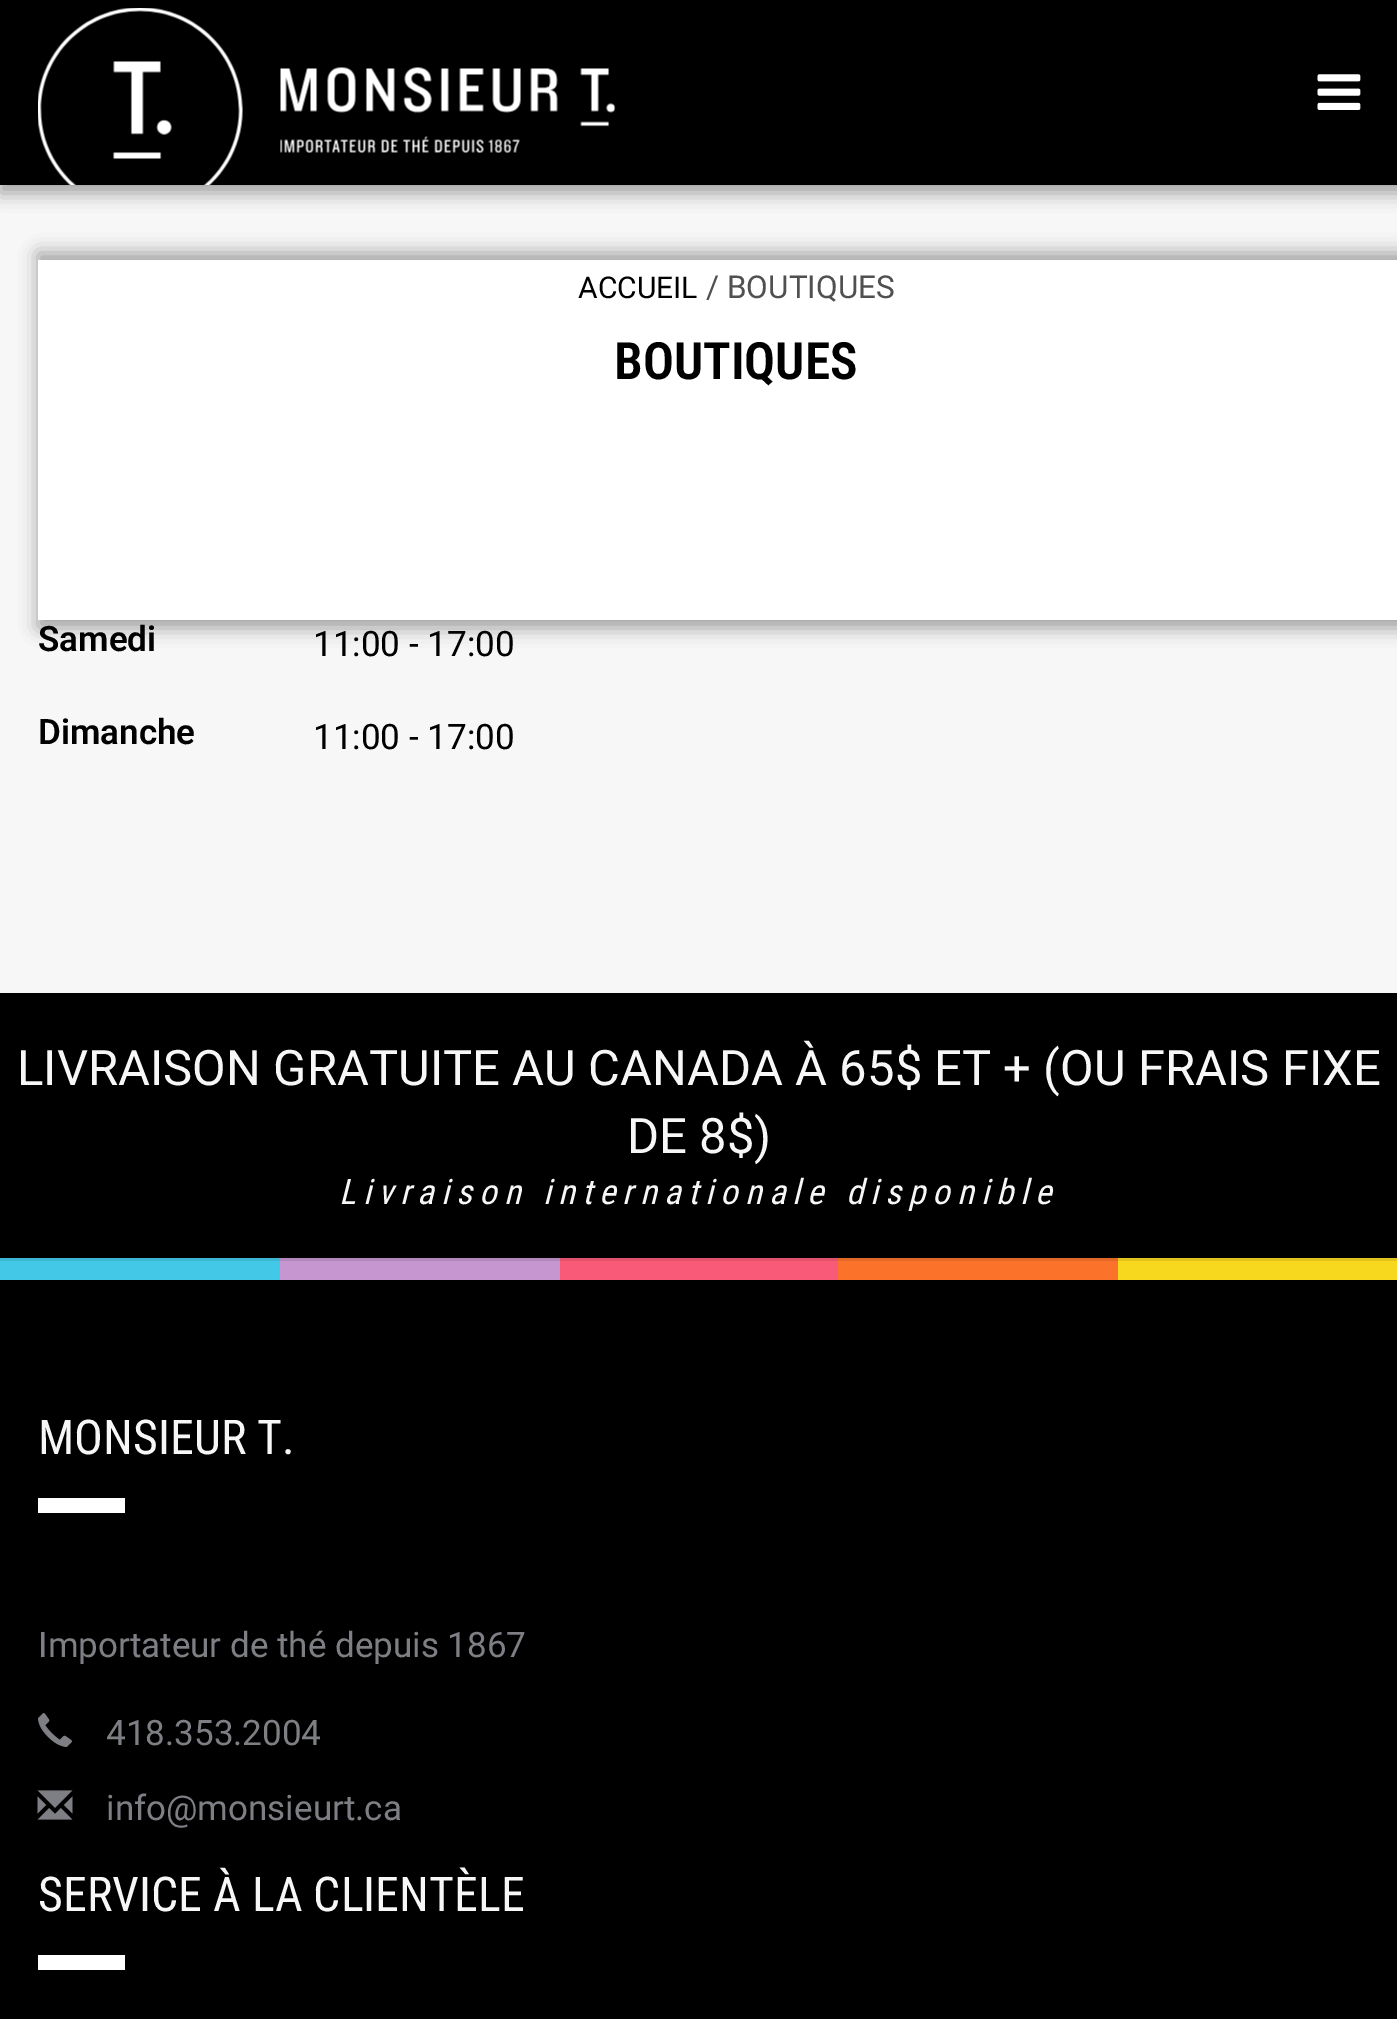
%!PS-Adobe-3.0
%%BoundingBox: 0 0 1397 2019
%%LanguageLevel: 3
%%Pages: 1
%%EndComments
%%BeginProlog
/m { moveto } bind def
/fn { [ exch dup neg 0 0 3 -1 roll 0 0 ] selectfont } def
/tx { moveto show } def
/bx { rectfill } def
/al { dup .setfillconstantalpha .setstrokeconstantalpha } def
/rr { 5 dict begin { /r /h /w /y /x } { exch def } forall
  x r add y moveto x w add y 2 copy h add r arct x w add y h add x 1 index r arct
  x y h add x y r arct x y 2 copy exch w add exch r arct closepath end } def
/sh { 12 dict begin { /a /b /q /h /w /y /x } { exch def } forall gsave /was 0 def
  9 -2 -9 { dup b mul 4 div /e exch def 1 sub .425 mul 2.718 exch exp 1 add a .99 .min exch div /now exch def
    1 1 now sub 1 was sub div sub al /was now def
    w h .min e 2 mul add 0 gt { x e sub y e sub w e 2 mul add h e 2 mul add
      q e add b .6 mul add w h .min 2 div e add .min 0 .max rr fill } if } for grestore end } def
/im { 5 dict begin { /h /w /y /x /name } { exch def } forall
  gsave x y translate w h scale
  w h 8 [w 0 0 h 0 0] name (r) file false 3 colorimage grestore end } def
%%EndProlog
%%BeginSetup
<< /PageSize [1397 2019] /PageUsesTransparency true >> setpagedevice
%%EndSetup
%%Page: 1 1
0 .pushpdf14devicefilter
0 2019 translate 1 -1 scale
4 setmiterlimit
0.969 setgray
0 0 1397 2019 bx
0 setgray
0 -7 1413 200 0 9 0.35 sh
0 0 1397 185 bx
(image0.raw) 38 8 205 177 im
(image1.raw) 280 67 336 86 im
(image2.raw) 1317 74 44 36 im
38 253 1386 375 0 9 0.35 sh
1 setgray
38 260 1359 360 bx
/Roboto-Regular 30 fn
0 setgray
(ACCUEIL) 578 298 tx
/Roboto-Regular 31.5 fn
0.314 setgray
(/ BOUTIQUES) 706 298 tx
/RobotoCondensed-SemiBold 51.5 fn
0 setgray
(BOUTIQUES) 614 379 tx
/Roboto-SemiBold 35 fn
(Samedi) 38 651 tx
/Roboto-Regular 35 fn
(11:00 - 17:00) 313 656 tx
/Roboto-SemiBold 35 fn
(Dimanche) 38 744 tx
/Roboto-Regular 35 fn
(11:00 - 17:00) 313 749 tx
0 993 1397 1026 bx
/Roboto-Regular 49 fn
0.969 setgray
(LIVRAISON GRATUITE AU CANADA À 65$ ET + \(OU FRAIS FIXE) 17 1085 tx
(DE 8$\)) 627 1153 tx
/RobotoCondensed-Italic 35 fn
339 1204 m 7 0 (Livraison internationale disponible) ashow
0.263 0.784 0.91 setrgbcolor
0 1261 280 19 bx
0.239 0.714 0.827 setrgbcolor
0 1258 280 3 bx
0.773 0.588 0.816 setrgbcolor
280 1261 280 19 bx
0.702 0.537 0.741 setrgbcolor
280 1258 280 3 bx
0.973 0.353 0.471 setrgbcolor
560 1261 278 19 bx
0.886 0.322 0.427 setrgbcolor
560 1258 278 3 bx
0.984 0.451 0.165 setrgbcolor
838 1261 280 19 bx
0.894 0.412 0.149 setrgbcolor
838 1258 280 3 bx
0.973 0.843 0.122 setrgbcolor
1118 1261 279 19 bx
0.886 0.769 0.11 setrgbcolor
1118 1258 279 3 bx
/RobotoCondensed-Regular 48 fn
0.969 setgray
(MONSIEUR T.) 38 1454 tx
1 setgray
38 1498 87 15 bx
/Roboto-Regular 35 fn
0.494 0.498 0.518 setrgbcolor
(Importateur de thé depuis 1867) 38 1657 tx
(image3.raw) 38 1713 34 34 im
(418.353.2004) 106 1745 tx
(image4.raw) 37 1790 36 30 im
(info@monsieurt.ca) 106 1820 tx
/RobotoCondensed-Regular 48 fn
0.969 setgray
(SERVICE À LA CLIENTÈLE) 38 1911 tx
1 setgray
38 1955 87 15 bx
.poppdf14devicefilter showpage
%%EOF
